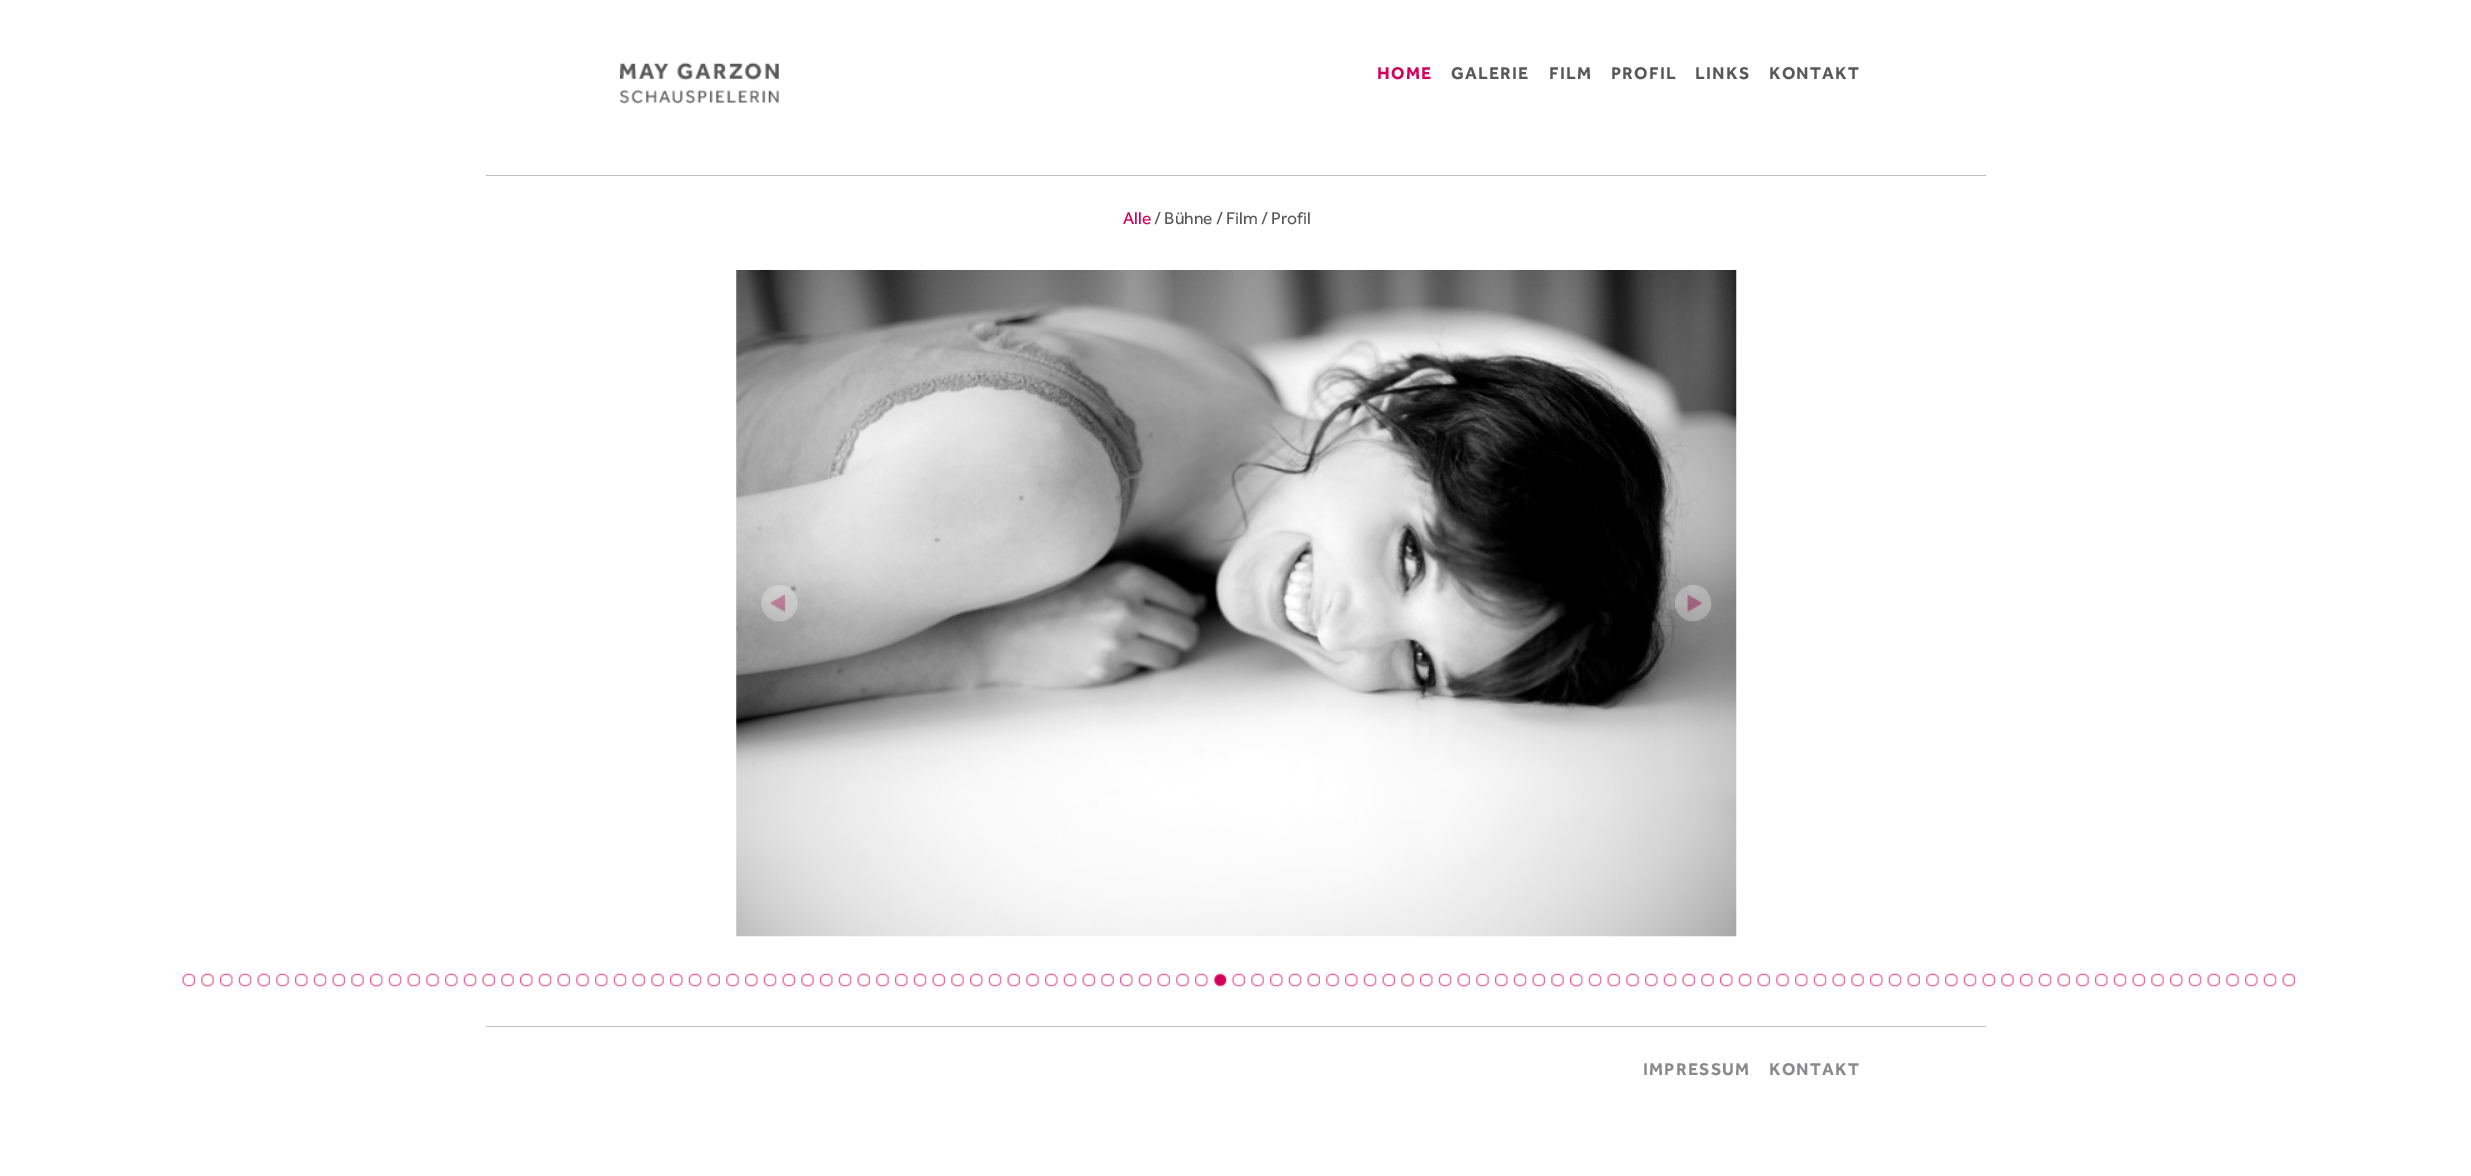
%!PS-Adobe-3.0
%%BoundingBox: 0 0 2471 1176
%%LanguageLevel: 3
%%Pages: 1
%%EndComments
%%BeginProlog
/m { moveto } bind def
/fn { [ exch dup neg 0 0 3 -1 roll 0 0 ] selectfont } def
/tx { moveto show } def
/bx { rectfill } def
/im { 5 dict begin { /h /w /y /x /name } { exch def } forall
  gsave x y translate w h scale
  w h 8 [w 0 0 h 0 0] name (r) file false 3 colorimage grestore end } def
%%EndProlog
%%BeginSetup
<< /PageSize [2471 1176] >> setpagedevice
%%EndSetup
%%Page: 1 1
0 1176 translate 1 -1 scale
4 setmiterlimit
1 setgray
0 0 2471 1176 bx
0.753 setgray
486 175 1500 1 bx
(image0.raw) 620 62 159 42 im
/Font-Bold 17.5 fn
0.824 0 0.357 setrgbcolor
1377 79 m 1.25 0 (HOME) ashow
0.345 0.345 0.353 setrgbcolor
1451 79 m 1.25 0 (GALERIE) ashow
1549 79 m 1.25 0 (FILM) ashow
1611 79 m 1.25 0 (PROFIL) ashow
1695 79 m 1.25 0 (LINKS) ashow
1769 79 m 1.25 0 (KONTAKT) ashow
/Font-Regular 17.5 fn
0.824 0 0.357 setrgbcolor
(Alle) 1123 224 tx
0.345 0.345 0.353 setrgbcolor
(/ Bühne / Film / Profil) 1154 224 tx
(image1.raw) 736 270 1001 667 im
(image2.raw) 761 585 37 37 im
(image3.raw) 1675 585 37 37 im
(image4.raw) 182 973 13 14 im
(image5.raw) 201 973 13 14 im
(image6.raw) 220 973 13 14 im
(image7.raw) 238 973 14 14 im
(image4.raw) 257 973 13 14 im
(image5.raw) 276 973 13 14 im
(image6.raw) 295 973 13 14 im
(image7.raw) 313 973 14 14 im
(image4.raw) 332 973 13 14 im
(image5.raw) 351 973 13 14 im
(image6.raw) 370 973 13 14 im
(image8.raw) 388 973 14 14 im
(image9.raw) 407 973 13 14 im
(image5.raw) 426 973 13 14 im
(image10.raw) 445 973 13 14 im
(image7.raw) 463 973 14 14 im
(image4.raw) 482 973 13 14 im
(image5.raw) 501 973 13 14 im
(image10.raw) 520 973 13 14 im
(image7.raw) 538 973 14 14 im
(image9.raw) 557 973 13 14 im
(image5.raw) 576 973 13 14 im
(image6.raw) 595 973 13 14 im
(image7.raw) 613 973 14 14 im
(image4.raw) 632 973 13 14 im
(image5.raw) 651 973 13 14 im
(image10.raw) 670 973 13 14 im
(image8.raw) 688 973 14 14 im
(image4.raw) 707 973 13 14 im
(image5.raw) 726 973 13 14 im
(image10.raw) 745 973 13 14 im
(image7.raw) 763 973 14 14 im
(image4.raw) 782 973 13 14 im
(image5.raw) 801 973 13 14 im
(image10.raw) 820 973 13 14 im
(image8.raw) 838 973 14 14 im
(image4.raw) 857 973 13 14 im
(image5.raw) 876 973 13 14 im
(image6.raw) 895 973 13 14 im
(image8.raw) 913 973 14 14 im
(image9.raw) 932 973 13 14 im
(image5.raw) 951 973 13 14 im
(image10.raw) 970 973 13 14 im
(image8.raw) 988 973 14 14 im
(image11.raw) 1007 973 13 14 im
(image5.raw) 1026 973 13 14 im
(image10.raw) 1045 973 13 14 im
(image8.raw) 1063 973 14 14 im
(image9.raw) 1082 973 13 14 im
(image5.raw) 1101 973 13 14 im
(image10.raw) 1120 973 13 14 im
(image8.raw) 1138 973 14 14 im
(image9.raw) 1157 973 13 14 im
(image5.raw) 1176 973 13 14 im
(image6.raw) 1195 973 13 14 im
(image12.raw) 1213 973 14 14 im
(image4.raw) 1232 973 13 14 im
(image5.raw) 1251 973 13 14 im
(image6.raw) 1270 973 13 14 im
(image7.raw) 1288 973 14 14 im
(image4.raw) 1307 973 13 14 im
(image5.raw) 1326 973 13 14 im
(image6.raw) 1345 973 13 14 im
(image8.raw) 1363 973 14 14 im
(image4.raw) 1382 973 13 14 im
(image5.raw) 1401 973 13 14 im
(image6.raw) 1420 973 13 14 im
(image7.raw) 1438 973 14 14 im
(image4.raw) 1457 973 13 14 im
(image5.raw) 1476 973 13 14 im
(image6.raw) 1495 973 13 14 im
(image7.raw) 1513 973 14 14 im
(image9.raw) 1532 973 13 14 im
(image5.raw) 1551 973 13 14 im
(image6.raw) 1570 973 13 14 im
(image7.raw) 1588 973 14 14 im
(image9.raw) 1607 973 13 14 im
(image5.raw) 1626 973 13 14 im
(image6.raw) 1645 973 13 14 im
(image8.raw) 1663 973 14 14 im
(image9.raw) 1682 973 13 14 im
(image5.raw) 1701 973 13 14 im
(image10.raw) 1720 973 13 14 im
(image7.raw) 1738 973 14 14 im
(image4.raw) 1757 973 13 14 im
(image5.raw) 1776 973 13 14 im
(image10.raw) 1795 973 13 14 im
(image7.raw) 1813 973 14 14 im
(image9.raw) 1832 973 13 14 im
(image5.raw) 1851 973 13 14 im
(image6.raw) 1870 973 13 14 im
(image7.raw) 1888 973 14 14 im
(image4.raw) 1907 973 13 14 im
(image5.raw) 1926 973 13 14 im
(image10.raw) 1945 973 13 14 im
(image8.raw) 1963 973 14 14 im
(image4.raw) 1982 973 13 14 im
(image5.raw) 2001 973 13 14 im
(image10.raw) 2020 973 13 14 im
(image13.raw) 2038 973 14 14 im
(image4.raw) 2057 973 13 14 im
(image5.raw) 2076 973 13 14 im
(image10.raw) 2095 973 13 14 im
(image8.raw) 2113 973 14 14 im
(image4.raw) 2132 973 13 14 im
(image5.raw) 2151 973 13 14 im
(image6.raw) 2170 973 13 14 im
(image8.raw) 2188 973 14 14 im
(image9.raw) 2207 973 13 14 im
(image5.raw) 2226 973 13 14 im
(image10.raw) 2245 973 13 14 im
(image8.raw) 2263 973 14 14 im
(image4.raw) 2282 973 13 14 im
0.753 setgray
486 1026 1500 1 bx
/Font-Bold 17.5 fn
0.541 0.541 0.549 setrgbcolor
1643 1075 m 1.25 0 (IMPRESSUM) ashow
1769 1075 m 1.25 0 (KONTAKT) ashow
showpage
%%EOF
